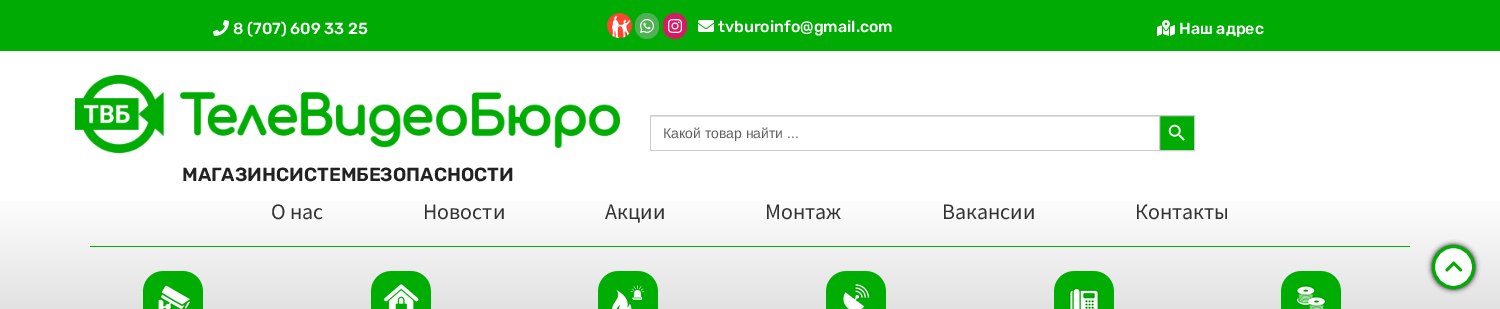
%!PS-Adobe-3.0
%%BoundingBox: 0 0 1500 309
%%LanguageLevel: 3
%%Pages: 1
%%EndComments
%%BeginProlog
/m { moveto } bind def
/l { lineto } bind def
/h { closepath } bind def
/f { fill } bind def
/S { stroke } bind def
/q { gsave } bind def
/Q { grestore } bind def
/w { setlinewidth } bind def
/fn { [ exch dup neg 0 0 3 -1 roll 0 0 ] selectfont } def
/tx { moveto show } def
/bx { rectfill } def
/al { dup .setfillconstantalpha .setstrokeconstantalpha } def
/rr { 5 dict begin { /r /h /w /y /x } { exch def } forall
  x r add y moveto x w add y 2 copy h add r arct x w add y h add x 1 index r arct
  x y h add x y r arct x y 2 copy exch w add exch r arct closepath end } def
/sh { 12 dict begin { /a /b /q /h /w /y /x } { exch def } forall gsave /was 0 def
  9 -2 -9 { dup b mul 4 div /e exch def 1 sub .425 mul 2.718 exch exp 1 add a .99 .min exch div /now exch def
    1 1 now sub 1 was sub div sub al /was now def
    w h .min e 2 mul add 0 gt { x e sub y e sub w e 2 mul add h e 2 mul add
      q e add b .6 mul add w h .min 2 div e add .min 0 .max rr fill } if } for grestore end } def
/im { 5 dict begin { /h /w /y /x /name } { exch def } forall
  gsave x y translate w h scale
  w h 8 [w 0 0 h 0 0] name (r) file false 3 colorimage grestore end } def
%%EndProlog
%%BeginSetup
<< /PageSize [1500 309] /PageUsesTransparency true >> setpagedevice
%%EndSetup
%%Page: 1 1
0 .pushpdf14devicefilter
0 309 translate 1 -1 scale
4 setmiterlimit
1 setgray
0 0 1500 309 bx
0 0.675 0.012 setrgbcolor
0 0 1500 51 bx
(image0.raw) 213 20 16 16 im
/Rubik-Medium 16 fn
1 setgray
(8 \(707\) 609 33 25) 233 34 tx
(image1.raw) 607 13 25 25 im
0.314 0.694 0.329 setrgbcolor
635 13 24 26 12 rr f
(image2.raw) 640 19 14 14 im
0.843 0.106 0.384 setrgbcolor
663 13 24 26 12 rr f
(image3.raw) 668 19 15 14 im
(image4.raw) 698 20 16 12 im
1 setgray
(tvburoinfo@gmail.com) 718 32 tx
(image5.raw) 1157 20 18 16 im
(Наш адрес) 1179 34 tx
0.875 setgray
651 116 508 1 bx
0.8 setgray
650 115 509 1 bx
650 150 509 1 bx
650 115 1 36 bx
/LiberationSans-Regular 14 fn
0.38 setgray
(Какой товар найти ...) 663 138 tx
0 0.675 0.012 setrgbcolor
1159.5 115.5 m 1194.5 115.5 l 1194.5 150.5 l 1159.5 150.5 l h q f Q
0.8 setgray
S
(image6.raw) 1168 124 17 17 im
(image7.raw) 75 75 545 78 im
/Rubik-SemiBold 19 fn
0.133 setgray
(МАГАЗИНСИСТЕМБЕЗОПАСНОСТИ) 182 181 tx
q 0 201 m 1500 201 l 1500 309 l 0 309 l h clip newpath
<< /ShadingType 2 /ColorSpace /DeviceRGB /Coords [750 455 750 191] /Extend [true true] /Function << /FunctionType 3 /Domain [0 1] /Functions [<< /FunctionType 2 /Domain [0 1] /C0 [0.812 0.812 0.812] /C1 [0.82 0.82 0.82] /N 1 >> << /FunctionType 2 /Domain [0 1] /C0 [0.82 0.82 0.82] /C1 [1 1 1] /N 1 >>] /Bounds [0.3] /Encode [0 1 0 1] >> >> shfill Q
/SourceSansPro-Regular 22 fn
0.2 setgray
(О нас) 271 219 tx
(Новости) 423 219 tx
(Акции) 605 219 tx
(Монтаж) 765 219 tx
(Вакансии) 942 219 tx
(Контакты) 1135 219 tx
0 0.675 0.012 setrgbcolor
90 246 1320 1 bx
(image8.raw) 143 271 60 38 im
(image9.raw) 371 271 60 38 im
(image10.raw) 598 271 60 38 im
(image11.raw) 826 271 60 38 im
(image12.raw) 1054 271 60 38 im
(image13.raw) 1281 271 60 38 im
0 setgray
1432 245 43 44 21.5 2.5 1 sh
1 setgray
1433.5 246.5 40 41 20 rr q f Q
0 0.675 0.012 setrgbcolor
3 w
S
(image14.raw) 1445 261 18 11 im
.poppdf14devicefilter showpage
%%EOF
